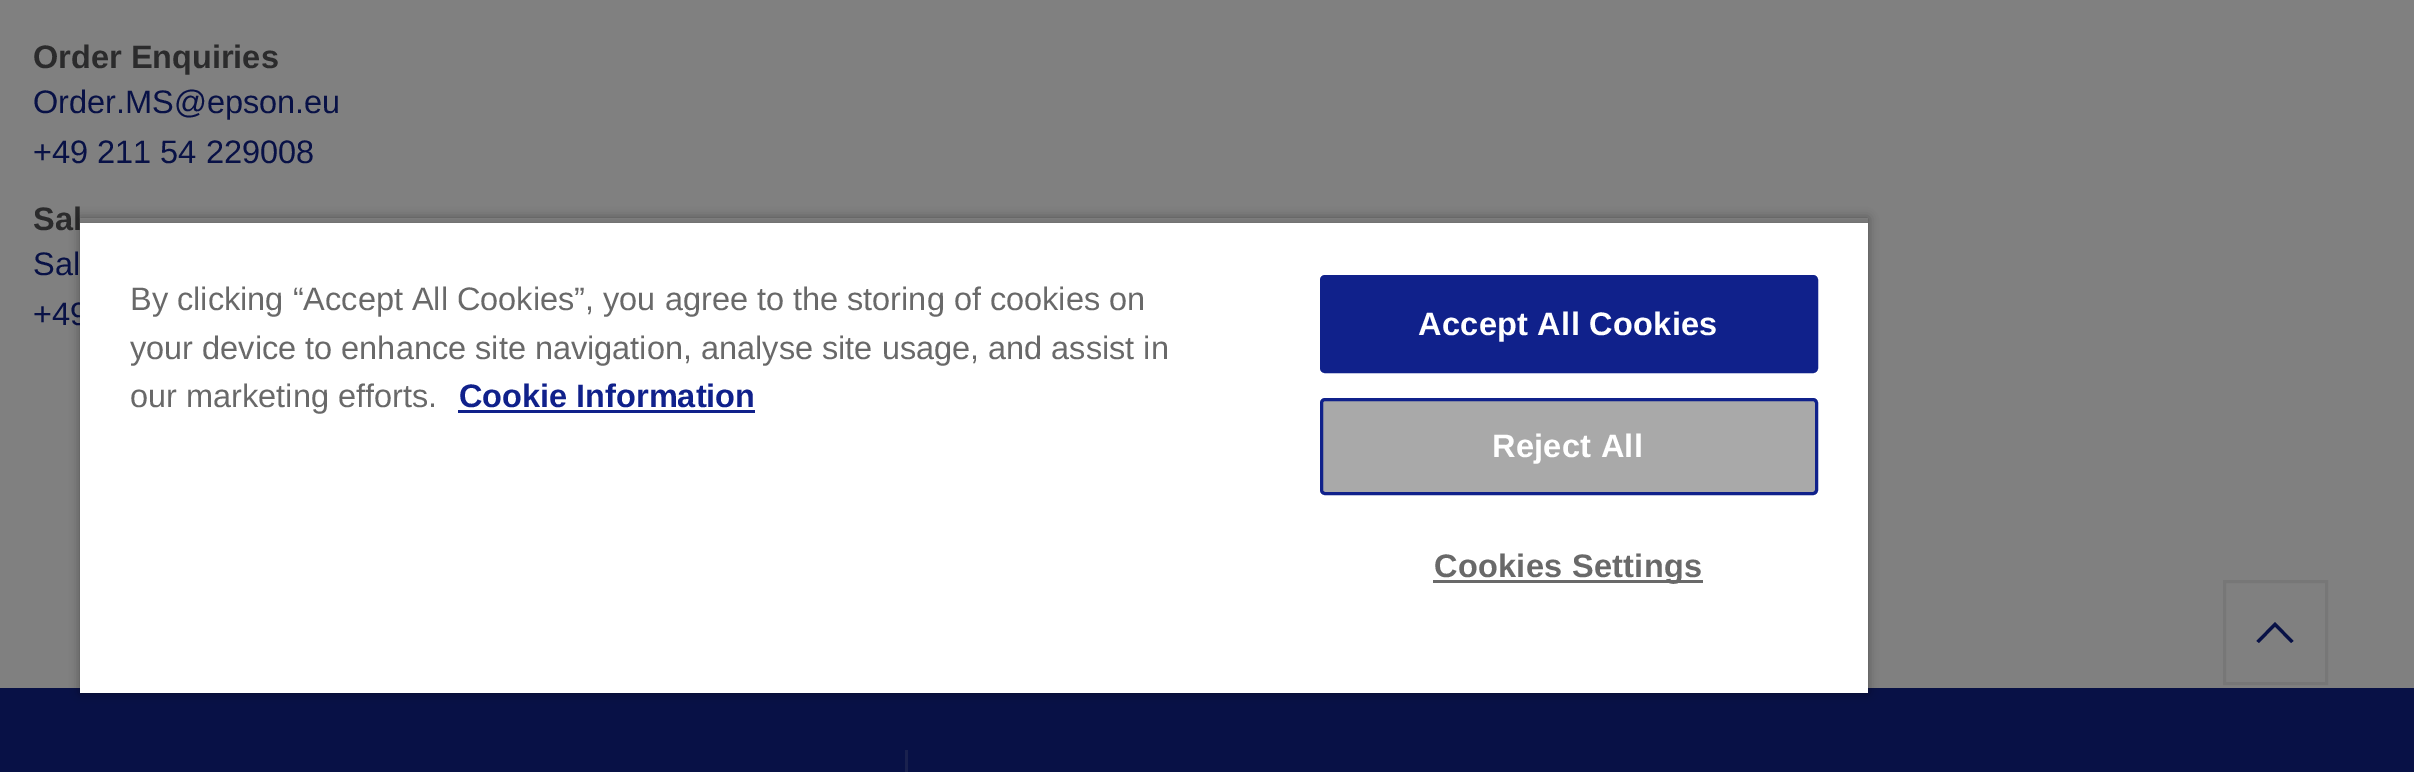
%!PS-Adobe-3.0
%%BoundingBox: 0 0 2414 772
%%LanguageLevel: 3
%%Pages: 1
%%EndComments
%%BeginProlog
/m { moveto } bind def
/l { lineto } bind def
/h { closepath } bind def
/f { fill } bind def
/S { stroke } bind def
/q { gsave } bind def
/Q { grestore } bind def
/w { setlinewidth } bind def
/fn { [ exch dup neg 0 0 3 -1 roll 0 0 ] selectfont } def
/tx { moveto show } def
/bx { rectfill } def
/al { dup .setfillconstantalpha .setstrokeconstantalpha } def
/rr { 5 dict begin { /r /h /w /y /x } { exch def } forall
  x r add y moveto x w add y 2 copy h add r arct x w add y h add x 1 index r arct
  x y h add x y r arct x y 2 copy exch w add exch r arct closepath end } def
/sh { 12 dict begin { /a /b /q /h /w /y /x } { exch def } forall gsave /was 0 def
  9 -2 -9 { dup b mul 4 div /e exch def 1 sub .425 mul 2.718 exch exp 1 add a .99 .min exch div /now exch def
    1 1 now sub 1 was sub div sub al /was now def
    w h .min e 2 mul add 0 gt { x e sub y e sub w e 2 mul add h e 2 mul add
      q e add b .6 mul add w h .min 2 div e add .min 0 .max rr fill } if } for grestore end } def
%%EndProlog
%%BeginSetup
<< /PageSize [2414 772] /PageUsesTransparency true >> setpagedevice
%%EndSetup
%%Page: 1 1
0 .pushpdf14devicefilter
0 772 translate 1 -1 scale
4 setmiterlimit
0.502 setgray
0 0 2414 772 bx
/LiberationSans-Bold 32.5 fn
0.169 0.169 0.173 setrgbcolor
(Order Enquiries) 33 68 tx
/LiberationSans-Regular 32.5 fn
0.031 0.067 0.275 setrgbcolor
(Order.MS@epson.eu) 33 113 tx
(+49 211 54 229008) 33 163 tx
/LiberationSans-Bold 32.5 fn
0.169 0.169 0.173 setrgbcolor
(Sal) 33 230 tx
/LiberationSans-Regular 32.5 fn
0.031 0.067 0.275 setrgbcolor
(Sal) 33 275 tx
(+49) 33 325 tx
2259 643 m 2256.5 641 l 2275 622 l 2293.5 641 l 2291 643 l 2275 626.5 l h f
0.467 setgray
3 w
2224.5 581.5 102 102 rectstroke
0.031 0.067 0.275 setrgbcolor
0 688 2414 84 bx
0.102 0.129 0.306 setrgbcolor
905 750 3 22 bx
q
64 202 m 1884 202 l 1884 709 l 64 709 l h 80 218 m 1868 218 l 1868 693 l 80 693 l h eoclip newpath
0 setgray
80 218 1788 475 0 5 0.35 sh
Q
q
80 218 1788 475 rectclip
0 setgray
80 223 1788 470 0 5 0.2 sh
Q
1 setgray
80 223 1788 470 bx
0.412 setgray
(By clicking “Accept All Cookies”, you agree to the storing of cookies on) 130 310 tx
(your device to enhance site navigation, analyse site usage, and assist in) 130 359 tx
(our marketing efforts.) 130 407 tx
/LiberationSans-Bold 32.5 fn
0.063 0.129 0.545 setrgbcolor
(Cookie Information) 459 407 tx
458 410 297 3 bx
1321.5 276.5 495 95 3.5 rr q f Q
S
1 setgray
1418 335 m 0.3 0 (Accept All Cookies) ashow
0.663 setgray
1321.5 399.5 495 94 3.5 rr q f Q
0.063 0.129 0.545 setrgbcolor
S
1 setgray
1492 457 m 0.3 0 (Reject All) ashow
0.412 setgray
1433 580 270 3 bx
1434 577 m 0.3 0 (Cookies Settings) ashow
.poppdf14devicefilter showpage
%%EOF
